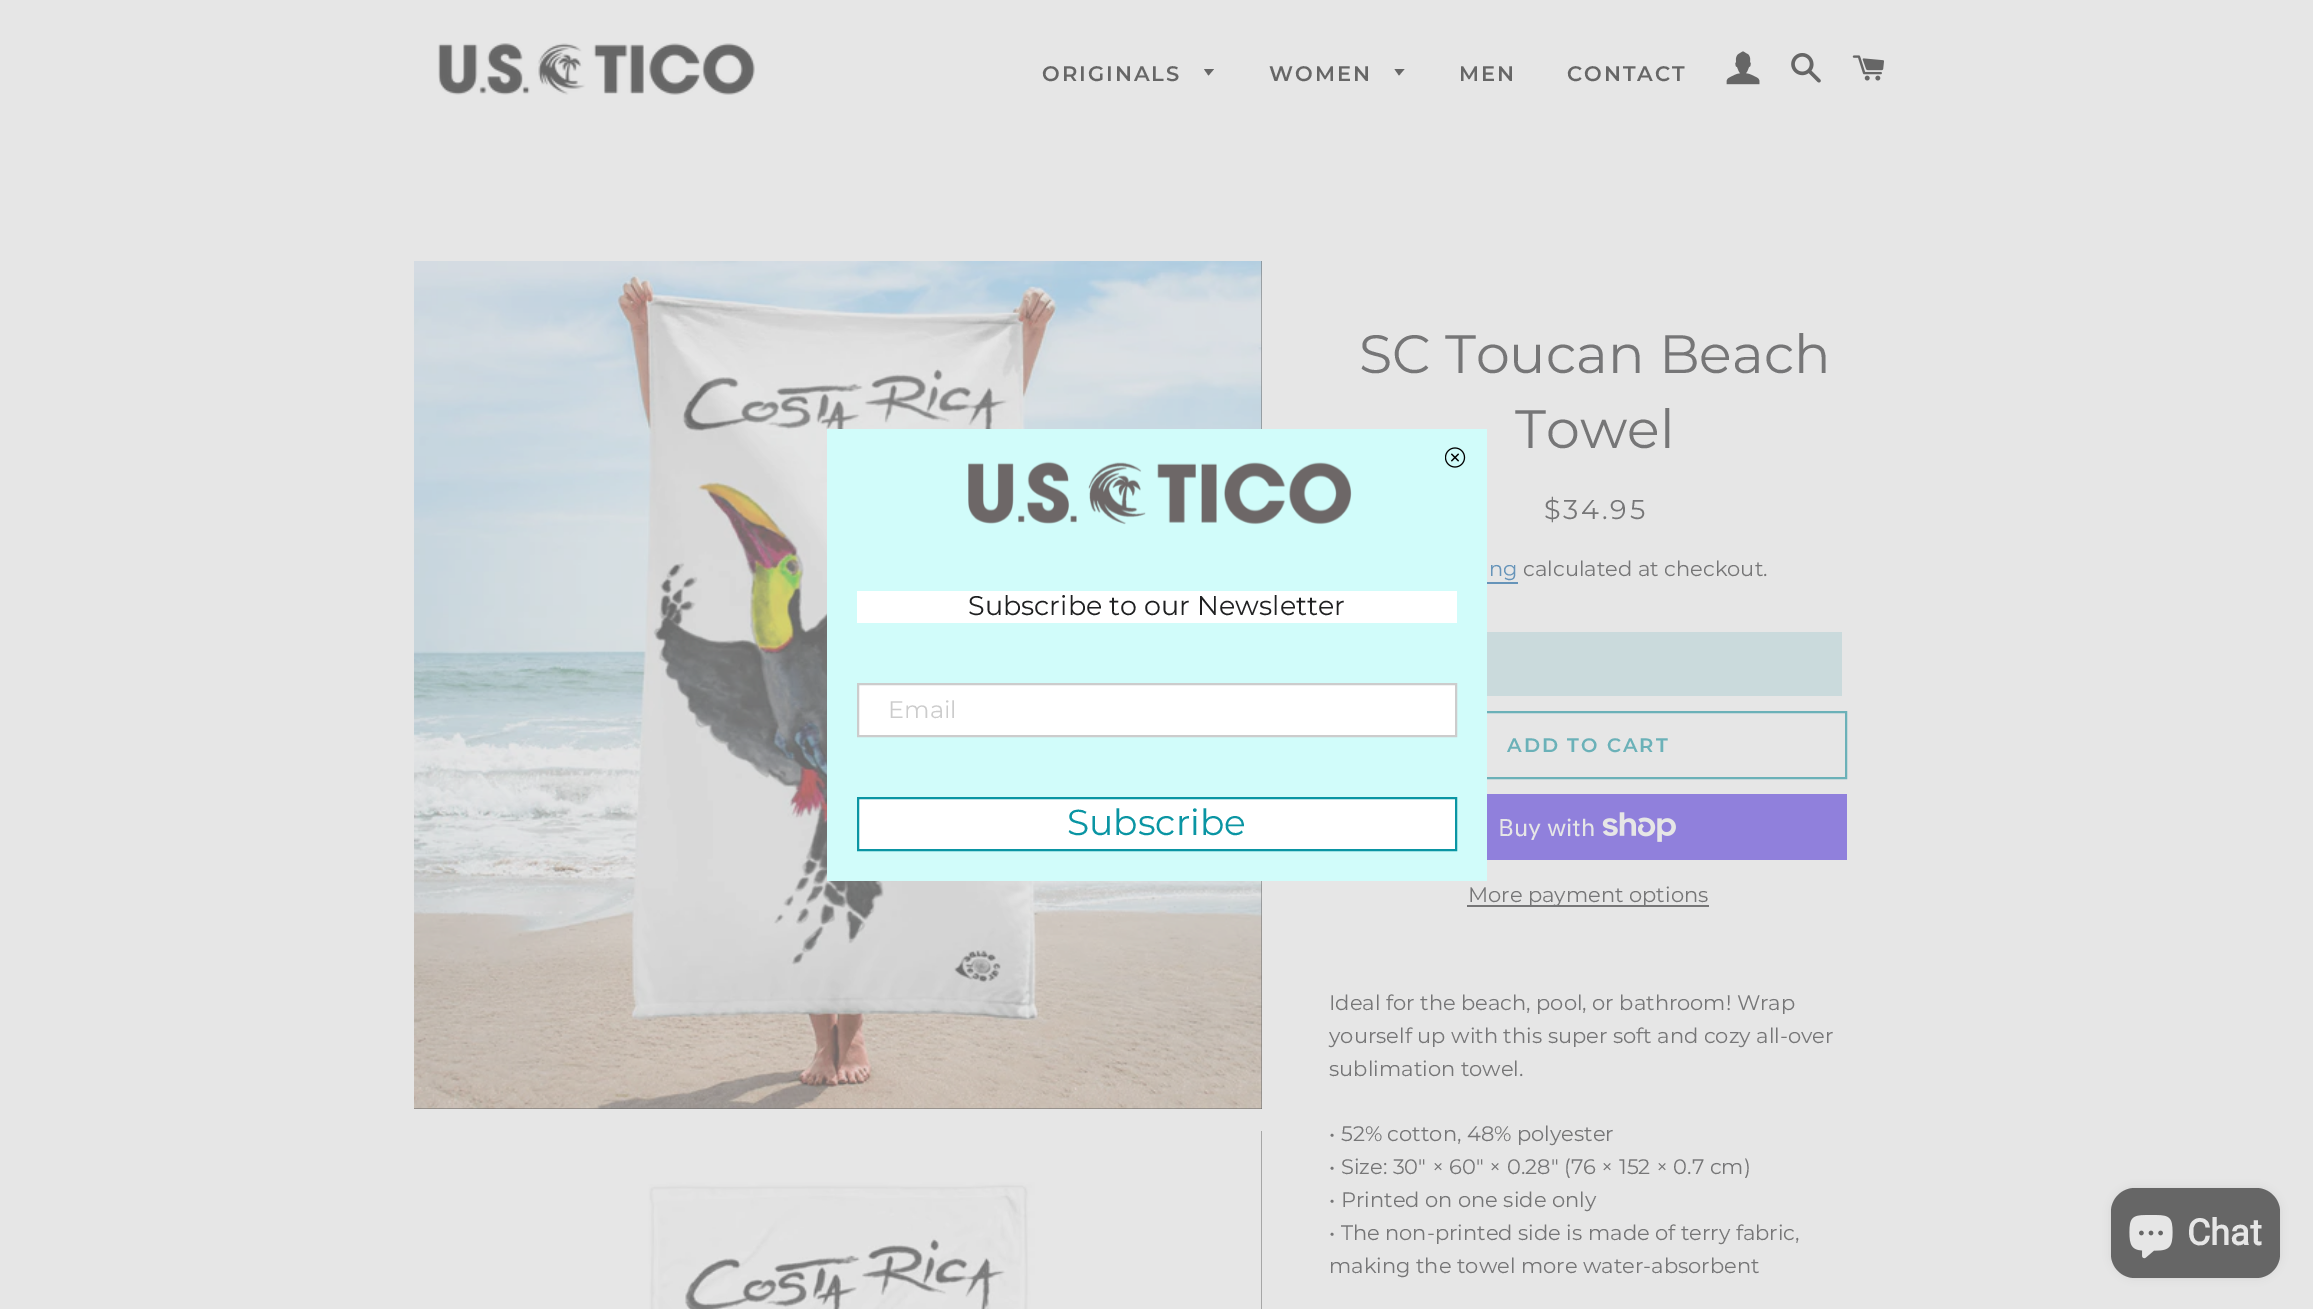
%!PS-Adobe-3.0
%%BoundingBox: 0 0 2313 1309
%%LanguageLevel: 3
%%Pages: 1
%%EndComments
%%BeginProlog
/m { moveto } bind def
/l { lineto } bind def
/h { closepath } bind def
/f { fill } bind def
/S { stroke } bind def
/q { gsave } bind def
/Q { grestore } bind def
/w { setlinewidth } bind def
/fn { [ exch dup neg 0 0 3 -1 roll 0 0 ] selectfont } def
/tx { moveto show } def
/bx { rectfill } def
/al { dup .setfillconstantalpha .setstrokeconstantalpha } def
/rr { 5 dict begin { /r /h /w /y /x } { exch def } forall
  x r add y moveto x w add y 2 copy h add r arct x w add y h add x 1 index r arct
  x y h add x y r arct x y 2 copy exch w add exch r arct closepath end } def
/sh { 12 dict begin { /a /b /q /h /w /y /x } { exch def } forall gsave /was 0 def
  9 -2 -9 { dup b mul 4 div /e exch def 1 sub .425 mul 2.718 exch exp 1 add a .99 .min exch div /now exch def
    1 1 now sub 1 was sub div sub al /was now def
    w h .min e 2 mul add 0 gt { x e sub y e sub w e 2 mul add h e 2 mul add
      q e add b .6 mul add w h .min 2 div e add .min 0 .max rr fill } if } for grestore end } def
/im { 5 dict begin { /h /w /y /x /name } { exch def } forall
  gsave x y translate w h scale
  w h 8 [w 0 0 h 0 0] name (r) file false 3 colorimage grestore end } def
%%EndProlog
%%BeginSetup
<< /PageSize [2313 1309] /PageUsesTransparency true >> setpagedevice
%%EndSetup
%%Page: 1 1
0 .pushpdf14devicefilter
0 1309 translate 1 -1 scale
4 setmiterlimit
0.902 setgray
0 0 2313 1309 bx
(image0.raw) 438 43 317 52 im
/Montserrat-SemiBold 21 fn
0.4 setgray
1042 81 m 2 0 (ORIGINALS) ashow
1204 69 m 1208.5 75.5 l 1214 69 l h f
1269 81 m 2 0 (WOMEN) ashow
1394.5 69 m 1399 75.5 l 1404.5 69 l h f
1459 81 m 2 0 (MEN) ashow
1567 81 m 2 0 (CONTACT) ashow
(image1.raw) 1726 51 34 34 im
(image2.raw) 1791 53 30 30 im
(image3.raw) 1852 55 32 26 im
414 261 848 848 bx
(image6.raw) 414 261 848 848 im
0.42 0.694 0.722 setrgbcolor
2 w
1330 712 516 66 rectstroke
0.82 0.988 0.98 setrgbcolor
827 429 660 452 bx
(image4.raw) 1445 447 21 21 im
(image5.raw) 968 461 384 64 im
1 setgray
857 591 600 32 bx
/Montserrat-Thin 27 fn
0.122 0.125 0.129 setrgbcolor
(Subscribe to our Newsletter) 968 615 tx
1 setgray
858 684 m 1456 684 l 1456 736 l 858 736 l h q f Q
0.8 setgray
S
/Montserrat-Thin 24 fn
(Email) 888 718 tx
1 setgray
858 798 m 1456 798 l 1456 850 l 858 850 l h q f Q
0.039 0.584 0.639 setrgbcolor
S
/Montserrat-Thin 36 fn
(Subscribe) 1067 835 tx
0.4 setgray
1261 1131 1 178 bx
(image7.raw) 414 1131 848 178 im
/Montserrat-Thin 54 fn
0.463 0.463 0.467 setrgbcolor
(SC Toucan Beach) 1359 373 tx
(Towel) 1515 448 tx
/Montserrat-Thin 27 fn
1544 519 m 2.75 0 ($34.95) ashow
/Montserrat-Thin 21 fn
0.4 0.58 0.725 setrgbcolor
(ng) 1489 576 tx
1487 582 31 2 bx
0.463 0.463 0.467 setrgbcolor
(calculated at checkout.) 1523 576 tx
0.792 0.855 0.863 setrgbcolor
1487 632 355 64 bx
/Montserrat-SemiBold 19.5 fn
0.42 0.694 0.722 setrgbcolor
1507 752 m 2 0 (ADD TO CART) ashow
0.565 0.502 0.863 setrgbcolor
1487 794 360 66 bx
/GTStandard-Regular 24 fn
0.902 setgray
(Buy with) 1498 836 tx
(image8.raw) 1602 812 74 30 im
0.463 0.463 0.467 setrgbcolor
1467 905 242 2 bx
/Montserrat-Thin 21 fn
(More payment options) 1468 902 tx
(Ideal for the beach, pool, or bathroom! Wrap) 1329 1010 tx
(yourself up with this super soft and cozy all-over) 1329 1043 tx
(sublimation towel.) 1329 1076 tx
(• 52% cotton, 48% polyester) 1329 1141 tx
(• Size: 30″ × 60″ × 0.28″ \(76 × 152 × 0.7 cm\)) 1329 1174 tx
(• Printed on one side only) 1329 1207 tx
(• The non-printed side is made of terry fabric,) 1329 1240 tx
(making the towel more water-absorbent) 1329 1273 tx
0.4 setgray
2111 1188 169 90 24 4 0.15 sh
2111 1188 169 90 24 rr f
(image9.raw) 2129 1215 44 44 im
/Roboto-Bold 36 fn
0.902 setgray
(Chat) 2187 1245 tx
.poppdf14devicefilter showpage
%%EOF
